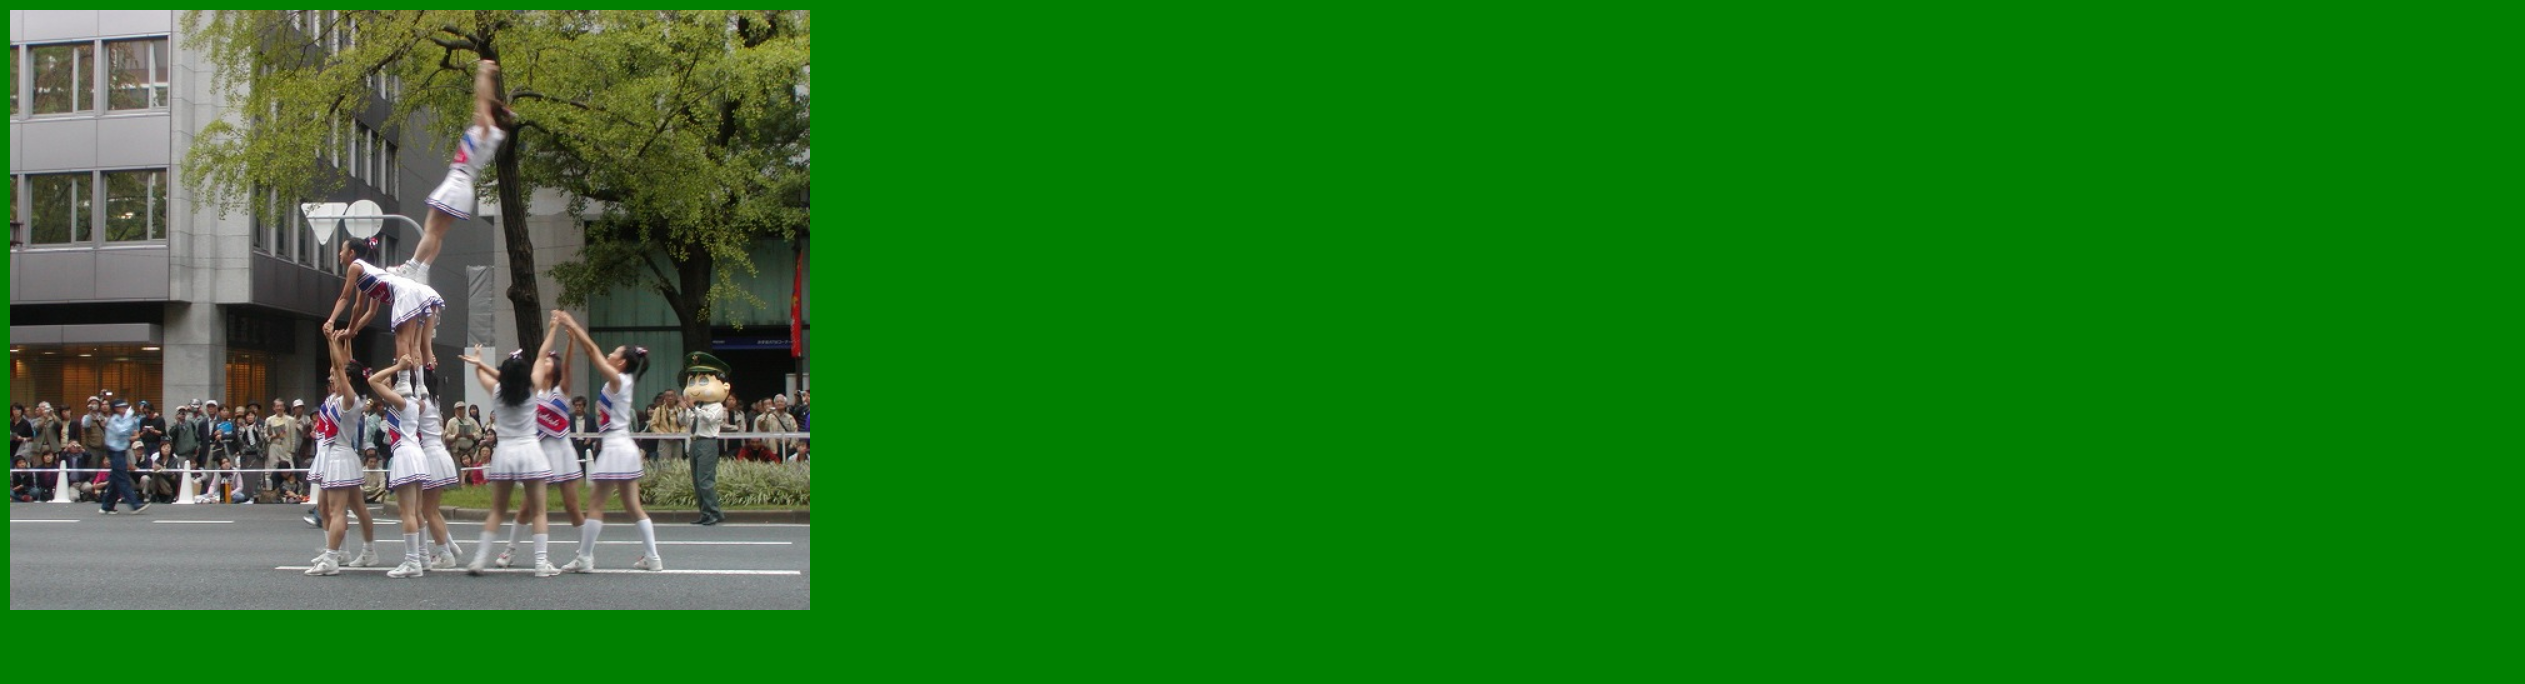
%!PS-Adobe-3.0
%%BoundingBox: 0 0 2525 684
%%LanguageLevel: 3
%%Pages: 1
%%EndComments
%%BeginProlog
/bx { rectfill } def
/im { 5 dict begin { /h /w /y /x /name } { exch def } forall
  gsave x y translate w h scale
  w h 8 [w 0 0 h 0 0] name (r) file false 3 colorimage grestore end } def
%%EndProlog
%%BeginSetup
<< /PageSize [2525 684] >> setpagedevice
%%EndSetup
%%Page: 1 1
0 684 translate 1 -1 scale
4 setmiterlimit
0 0.502 0 setrgbcolor
0 0 2525 684 bx
(image0.raw) 10 10 800 600 im
showpage
%%EOF
